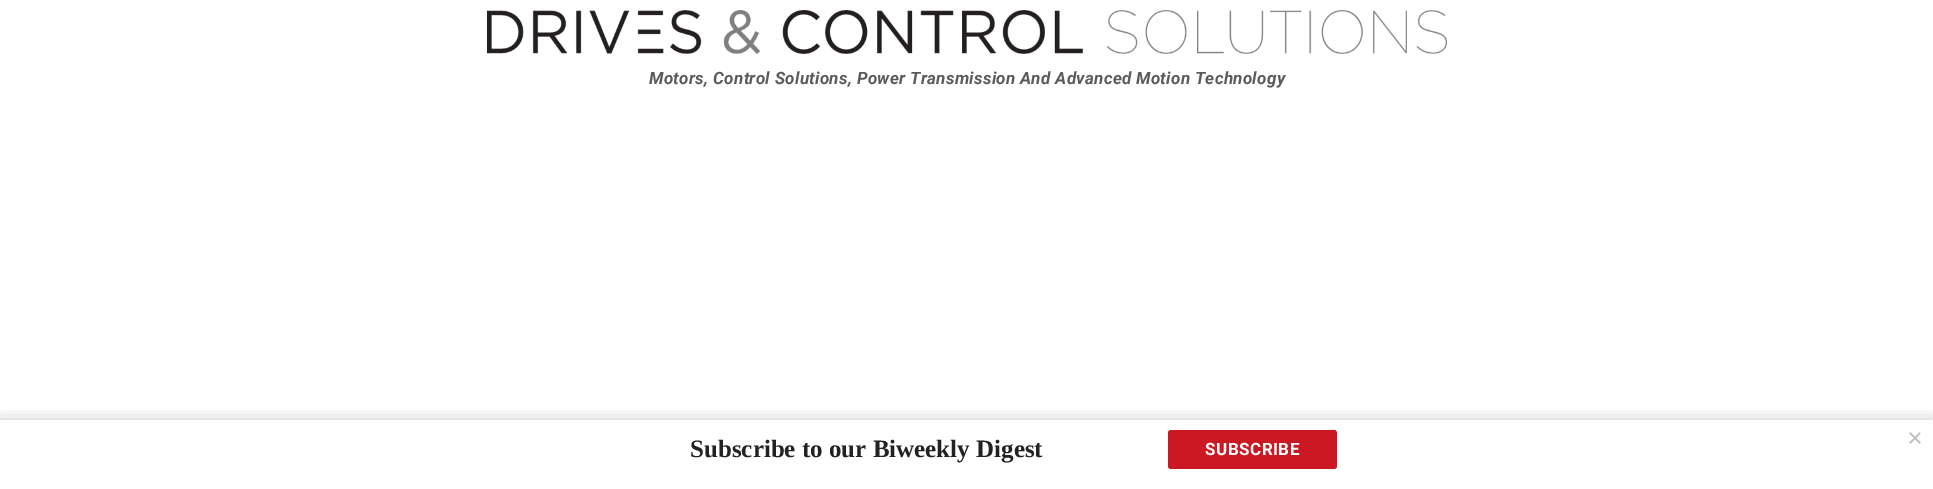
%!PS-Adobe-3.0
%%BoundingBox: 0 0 1933 489
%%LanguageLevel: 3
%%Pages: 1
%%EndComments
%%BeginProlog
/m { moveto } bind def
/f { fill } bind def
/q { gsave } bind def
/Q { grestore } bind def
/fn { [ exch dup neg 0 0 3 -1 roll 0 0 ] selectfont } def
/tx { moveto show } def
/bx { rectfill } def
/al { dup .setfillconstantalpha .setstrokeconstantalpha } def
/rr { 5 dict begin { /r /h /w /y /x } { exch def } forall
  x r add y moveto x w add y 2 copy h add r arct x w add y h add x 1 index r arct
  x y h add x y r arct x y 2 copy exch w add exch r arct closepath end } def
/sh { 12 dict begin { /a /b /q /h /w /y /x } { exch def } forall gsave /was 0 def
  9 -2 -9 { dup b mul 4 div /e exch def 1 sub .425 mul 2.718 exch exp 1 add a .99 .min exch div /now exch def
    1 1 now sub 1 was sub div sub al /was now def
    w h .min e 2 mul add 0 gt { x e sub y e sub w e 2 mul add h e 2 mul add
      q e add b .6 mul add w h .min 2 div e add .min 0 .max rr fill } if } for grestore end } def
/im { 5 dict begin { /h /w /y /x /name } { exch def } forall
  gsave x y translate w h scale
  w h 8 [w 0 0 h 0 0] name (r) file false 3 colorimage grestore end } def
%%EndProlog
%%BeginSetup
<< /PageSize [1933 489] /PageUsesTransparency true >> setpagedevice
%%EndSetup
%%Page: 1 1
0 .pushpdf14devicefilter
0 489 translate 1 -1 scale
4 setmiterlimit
1 setgray
0 0 1933 489 bx
(image0.raw) 487 10 960 44 im
/Roboto-BoldItalic 17 fn
0.357 setgray
649 84 m 0.35 0 (Motors, Control Solutions, Power Transmission And Advanced Motion Technology) ashow
q
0 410 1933 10 rectclip
0 setgray
0 420 1933 69 0 8 0.2 sh
Q
/LiberationSerif-Bold 25 fn
0.133 setgray
(Subscribe to our Biweekly Digest) 690 457 tx
0.792 0.098 0.133 setrgbcolor
1168 430 169 39 3 rr f
/Roboto-Bold 17 fn
1 setgray
1205 455 m 0.5 0 (SUBSCRIBE) ashow
(image1.raw) 1909 432 12 12 im
.poppdf14devicefilter showpage
%%EOF
